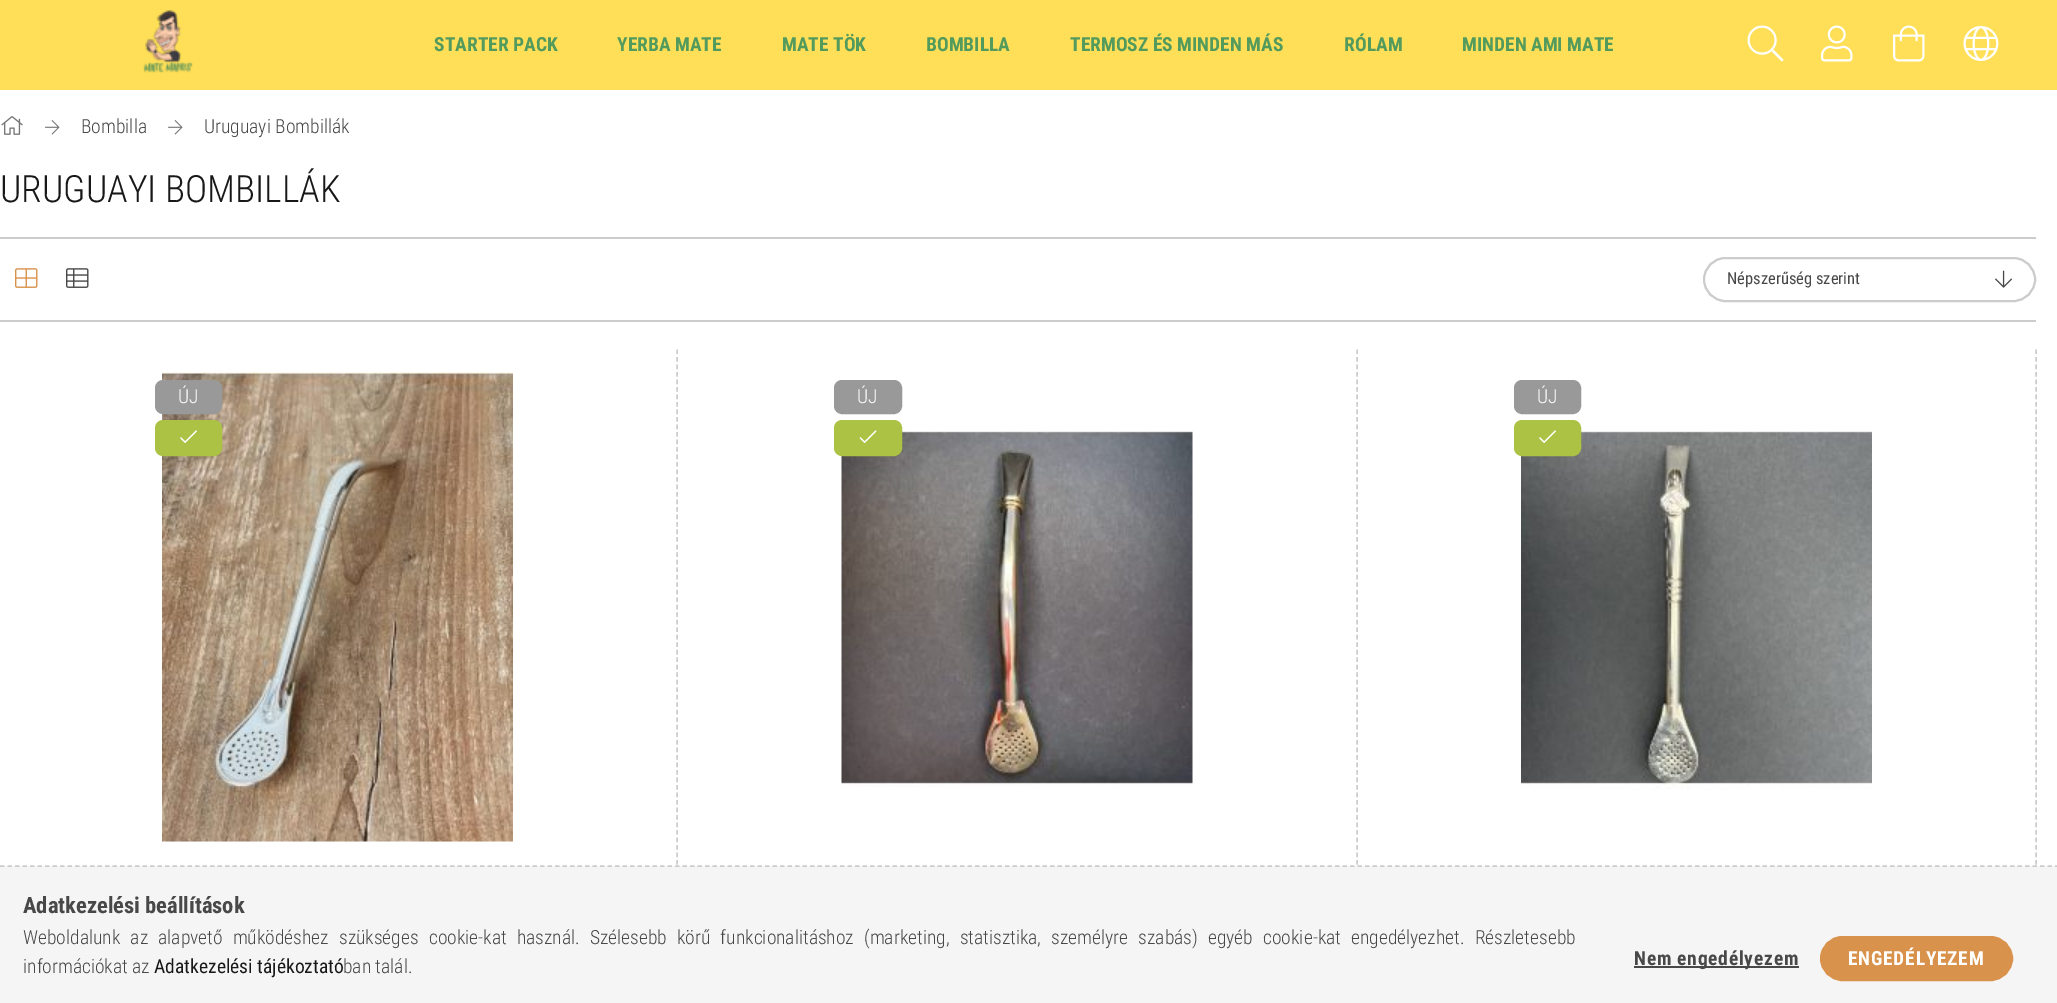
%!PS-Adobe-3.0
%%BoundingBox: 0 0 2057 1003
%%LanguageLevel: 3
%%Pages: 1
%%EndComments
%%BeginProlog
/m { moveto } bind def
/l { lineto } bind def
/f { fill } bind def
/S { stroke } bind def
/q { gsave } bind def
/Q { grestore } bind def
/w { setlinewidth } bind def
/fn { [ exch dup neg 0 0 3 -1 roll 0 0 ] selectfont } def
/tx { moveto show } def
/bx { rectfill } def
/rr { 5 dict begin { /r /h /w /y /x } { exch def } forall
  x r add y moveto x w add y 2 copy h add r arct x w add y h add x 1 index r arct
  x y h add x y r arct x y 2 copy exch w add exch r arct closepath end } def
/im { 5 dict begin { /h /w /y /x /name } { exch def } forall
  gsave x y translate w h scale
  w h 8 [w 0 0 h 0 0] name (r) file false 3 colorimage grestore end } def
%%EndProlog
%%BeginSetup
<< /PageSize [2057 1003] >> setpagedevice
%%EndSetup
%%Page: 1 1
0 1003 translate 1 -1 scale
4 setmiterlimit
1 setgray
0 0 2057 1003 bx
1 0.875 0.341 setrgbcolor
0 0 2057 90 bx
(image0.raw) 143 10 50 63 im
/RobotoCondensed-Bold 19.5 fn
0.325 0.604 0.365 setrgbcolor
(STARTER PACK) 434 51 tx
(YERBA MATE) 617 51 tx
(MATE TÖK) 782 51 tx
(BOMBILLA) 926 51 tx
(TERMOSZ ÉS MINDEN MÁS) 1070 51 tx
(RÓLAM) 1344 51 tx
(MINDEN AMI MATE) 1462 51 tx
(image1.raw) 1747 25 37 37 im
(image2.raw) 1821 25 32 37 im
(image3.raw) 1893 25 32 37 im
(image4.raw) 1963 26 36 35 im
(image5.raw) 1 116 22 19 im
(image6.raw) 45 120 15 15 im
/RobotoCondensed-Light 19.5 fn
0.282 setgray
(Bombilla) 81 133 tx
(image6.raw) 168 120 15 15 im
(Uruguayi Bombillák) 204 133 tx
/RobotoCondensed-Light 37.5 fn
0.094 setgray
(URUGUAYI BOMBILLÁK) 0 202 tx
0.8 setgray
0 237 2036 2 bx
0 320 2036 2 bx
(image7.raw) 15 268 23 20 im
(image8.raw) 66 268 23 20 im
2 w
1704 258 331 43 21.5 rr S
/RobotoCondensed-Regular 16.5 fn
0.282 setgray
(Népszerűség szerint) 1727 284 tx
(image9.raw) 1995 270 17 18 im
0.8 setgray
1.5 w
[4.5 3.01] 0 setdash
677 349.5 m 677 985.5 l S
(image10.raw) 162 372 351 470 im
0.6 setgray
156 381 65 32 7 rr q f Q
2 w
[] 0 setdash
S
/RobotoCondensed-Light 19.5 fn
1 setgray
(ÚJ) 178 403 tx
0.671 0.761 0.267 setrgbcolor
156 421 65 34 7 rr q f Q
S
(image11.raw) 180 430 17 13 im
0.8 setgray
1.5 w
[4.5 3.01] 0 setdash
1357 349.5 m 1357 985.5 l S
0.6 setgray
835 381 66 32 7 rr q f Q
2 w
[] 0 setdash
S
1 setgray
(ÚJ) 857 403 tx
(image13.raw) 841 431 352 356 im
0.671 0.761 0.267 setrgbcolor
835 421 66 34 7 rr q f Q
S
(image12.raw) 859 430 18 13 im
0.8 setgray
1.5 w
[4.5 3.01] 0 setdash
2036 349.5 m 2036 985.5 l S
0.6 setgray
1515 381 65 32 7 rr q f Q
2 w
[] 0 setdash
S
1 setgray
(ÚJ) 1537 403 tx
(image14.raw) 1521 431 351 359 im
0.671 0.761 0.267 setrgbcolor
1515 421 65 34 7 rr q f Q
S
(image11.raw) 1539 430 17 13 im
0.961 setgray
0 866 2057 137 bx
0.8 setgray
1.5 w
[4.5 3] 0 setdash
0 866 m 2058 866 l S
/RobotoCondensed-Bold 22.5 fn
0.282 setgray
(Adatkezelési beállítások) 23 913 tx
/RobotoCondensed-Light 19.5 fn
23 944 m 5.75 0 32 (Weboldalunk az alapvető működéshez szükséges cookie-kat használ. Szélesebb körű funkcionalitáshoz \(marketing, statisztika, személyre szabás\) egyéb cookie-kat engedélyezhet. Részletesebb) widthshow
(információkat az) 23 973 tx
/RobotoCondensed-Regular 19.5 fn
0.094 setgray
(Adatkezelési tájékoztató) 154 973 tx
/RobotoCondensed-Light 19.5 fn
0.282 setgray
(ban talál.) 343 973 tx
1634 966 165 2 bx
/RobotoCondensed-Bold 19.5 fn
1634 965 m 0.75 0 (Nem engedélyezem) ashow
0.851 0.573 0.298 setrgbcolor
1821 937 191 43 21.5 rr q f Q
2 w
[] 0 setdash
S
1 setgray
1848 965 m 0.75 0 (ENGEDÉLYEZEM) ashow
showpage
%%EOF
